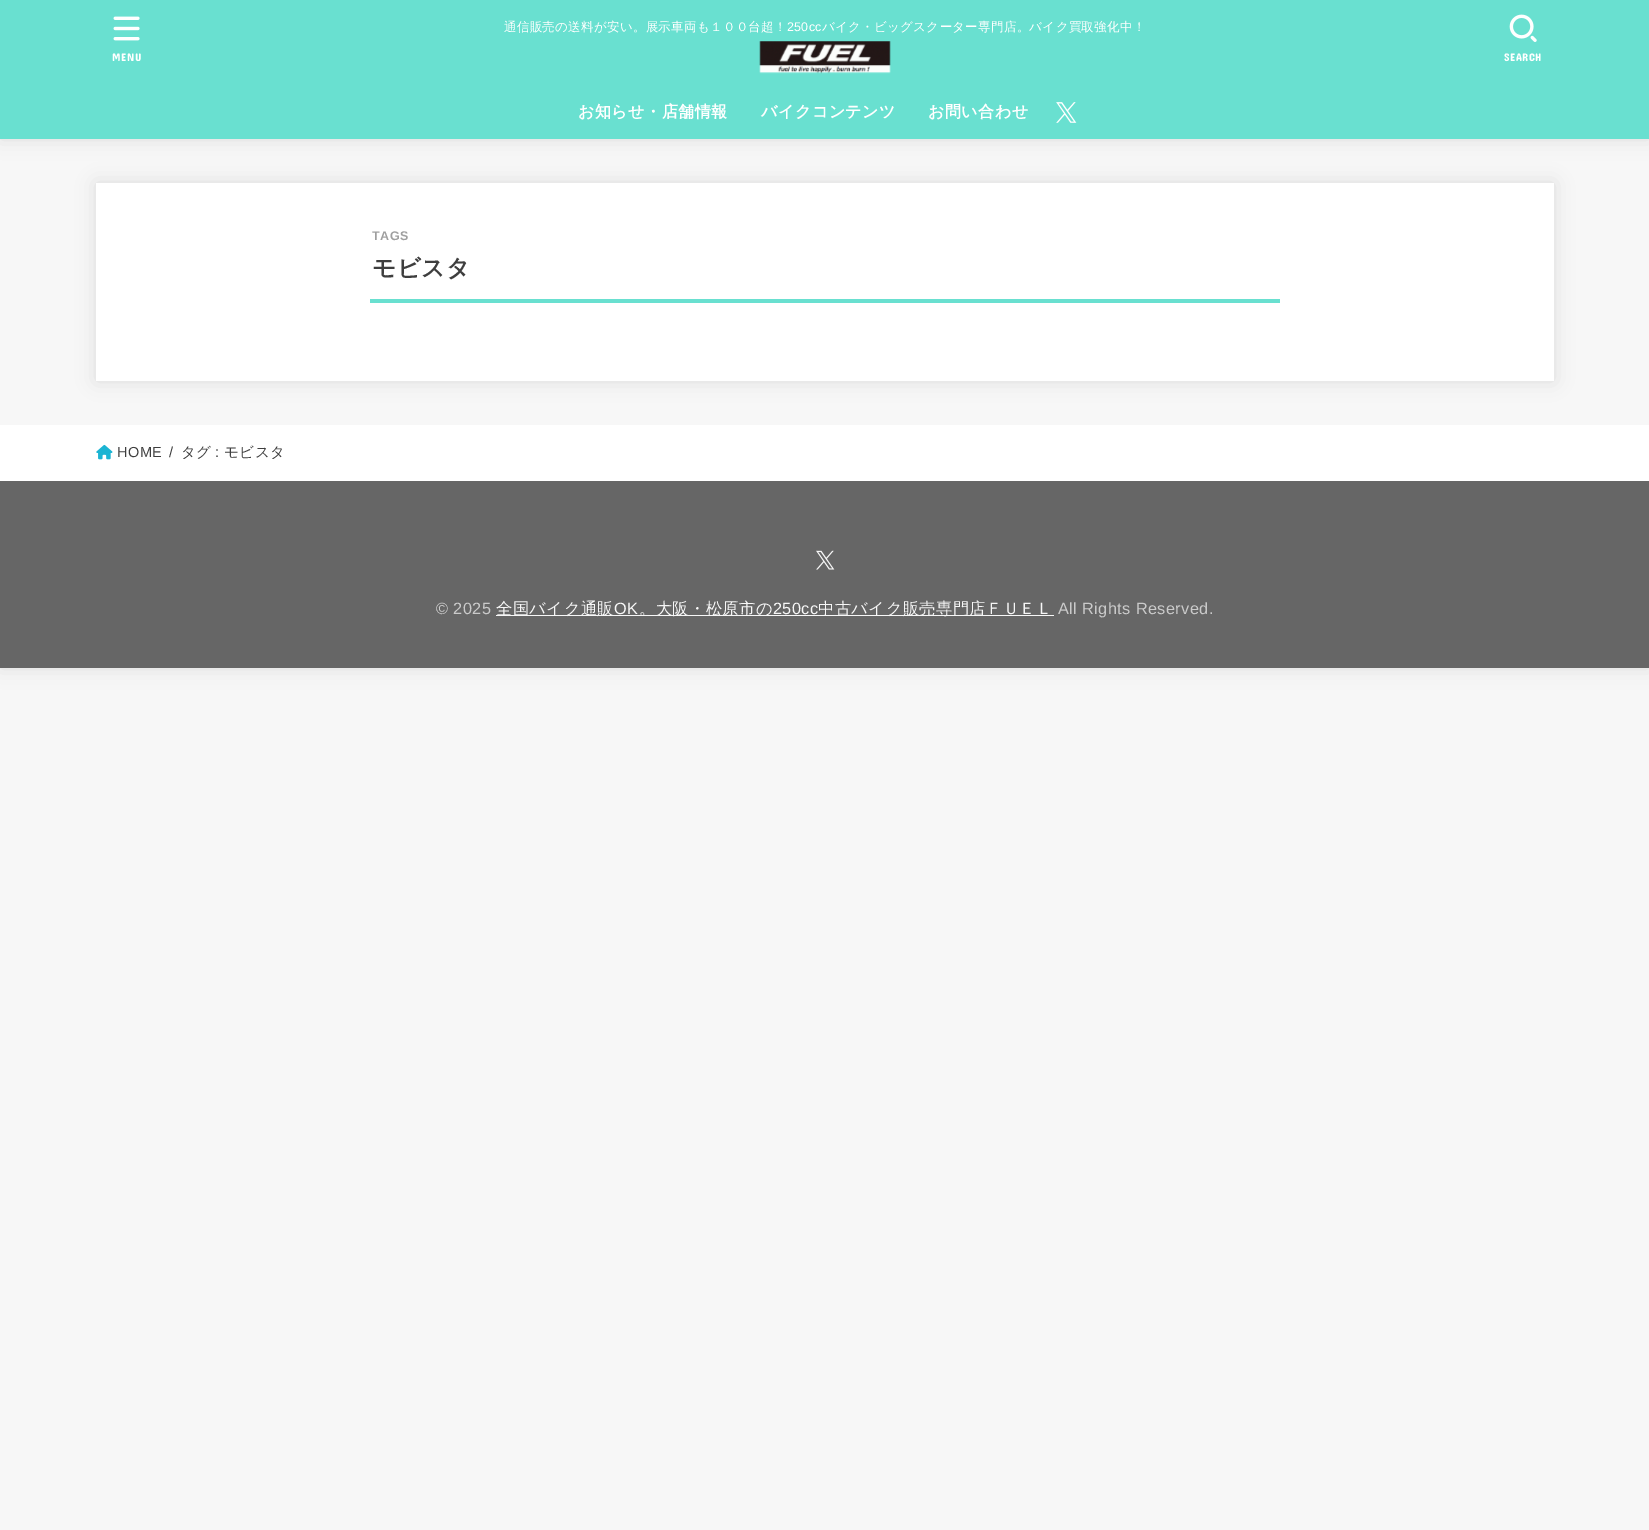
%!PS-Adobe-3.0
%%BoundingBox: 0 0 1649 1530
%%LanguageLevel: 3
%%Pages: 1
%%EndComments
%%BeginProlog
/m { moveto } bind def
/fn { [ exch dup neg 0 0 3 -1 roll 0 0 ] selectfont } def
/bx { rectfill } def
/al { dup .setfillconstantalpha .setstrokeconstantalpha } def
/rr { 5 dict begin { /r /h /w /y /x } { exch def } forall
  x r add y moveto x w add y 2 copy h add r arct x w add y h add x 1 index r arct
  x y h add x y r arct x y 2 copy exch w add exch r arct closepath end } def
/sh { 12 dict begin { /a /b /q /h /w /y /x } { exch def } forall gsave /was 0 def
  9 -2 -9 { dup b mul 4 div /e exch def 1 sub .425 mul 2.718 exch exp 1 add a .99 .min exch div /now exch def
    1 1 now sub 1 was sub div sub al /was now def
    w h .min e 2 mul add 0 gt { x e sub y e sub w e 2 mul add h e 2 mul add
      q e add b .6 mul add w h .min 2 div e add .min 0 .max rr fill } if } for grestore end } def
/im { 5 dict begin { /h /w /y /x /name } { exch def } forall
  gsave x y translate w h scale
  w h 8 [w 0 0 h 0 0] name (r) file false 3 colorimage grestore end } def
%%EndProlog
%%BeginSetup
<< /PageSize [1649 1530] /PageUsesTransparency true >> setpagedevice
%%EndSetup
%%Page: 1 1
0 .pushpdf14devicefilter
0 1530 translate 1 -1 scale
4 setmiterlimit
0.969 setgray
0 0 1649 1530 bx
0.4 setgray
0 0 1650 139 0 9.5 0.2 sh
0.412 0.878 0.816 setrgbcolor
0 0 1649 139 bx
/WenQuanYiZenHei-Medium 12.5 fn
1 setgray
504 31 m 0.3 0 (通信販売の送料が安い。展示車両も１００台超！) ashow
/LiberationSans-Regular 12.5 fn
787 31 m 0.3 0 (250cc) ashow
/WenQuanYiZenHei-Medium 12.5 fn
822 31 m 0.3 0 (バイク・ビッグスクーター専門店。バイク買取強化中！) ashow
(image0.raw) 759 41 132 33 im
(image1.raw) 113 16 27 25 im
/ConcertOne-Regular 11 fn
112 61 m 0.5 0 (MENU) ashow
(image2.raw) 1509 14 28 28 im
1504 61 m 0.5 0 (SEARCH) ashow
/WenQuanYiZenHei-Bold 16 fn
578 117 m 0.5 0 (お知らせ・店舗情報) ashow
761 117 m 0.5 0 (バイクコンテンツ) ashow
928 117 m 0.5 0 (お問い合わせ) ashow
(image3.raw) 1056 102 21 21 im
0.4 setgray
96 183 1458 198 0 9.5 0.2 sh
1 setgray
96 183 1458 198 bx
0.412 0.878 0.816 setrgbcolor
370 299 910 4 bx
/LiberationSans-Bold 12.5 fn
0.624 setgray
372 240 m 0.5 0 (TAGS) ashow
/WenQuanYiZenHei-Bold 23.5 fn
0.243 setgray
372 276 m 0.5 0 (モビスタ) ashow
0.4 setgray
0 481 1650 187 0 9.5 0.2 sh
1 setgray
0 425 1649 56 bx
(image4.raw) 96 444 17 16 im
/LiberationSans-Regular 14.5 fn
0.243 setgray
117 457 m 0.5 0 (HOME) ashow
169 457 m 0.5 0 (/) ashow
/WenQuanYiZenHei-Medium 14.5 fn
181 457 m 0.5 0 (タグ) ashow
/LiberationSans-Regular 14.5 fn
215 457 m 0.5 0 (:) ashow
/WenQuanYiZenHei-Medium 14.5 fn
224 457 m 0.5 0 (モビスタ) ashow
0.4 setgray
0 481 1649 187 bx
(image5.raw) 816 550 19 20 im
/LiberationSans-Regular 16.3 fn
0.792 setgray
436 614 m 0.4 0 (© 2025) ashow
0.969 setgray
496 615 558 1 bx
/WenQuanYiZenHei-Medium 16.3 fn
496 614 m 0.4 0 (全国バイク通販) ashow
/LiberationSans-Regular 16.3 fn
614 614 m 0.4 0 (OK) ashow
/WenQuanYiZenHei-Medium 16.3 fn
639 614 m 0.4 0 (。大阪・松原市の) ashow
/LiberationSans-Regular 16.3 fn
773 614 m 0.4 0 (250cc) ashow
/WenQuanYiZenHei-Medium 16.3 fn
818 614 m 0.4 0 (中古バイク販売専門店ＦＵＥＬ) ashow
/LiberationSans-Regular 16.3 fn
0.792 setgray
1058 614 m 0.4 0 (All Rights Reserved.) ashow
.poppdf14devicefilter showpage
%%EOF
